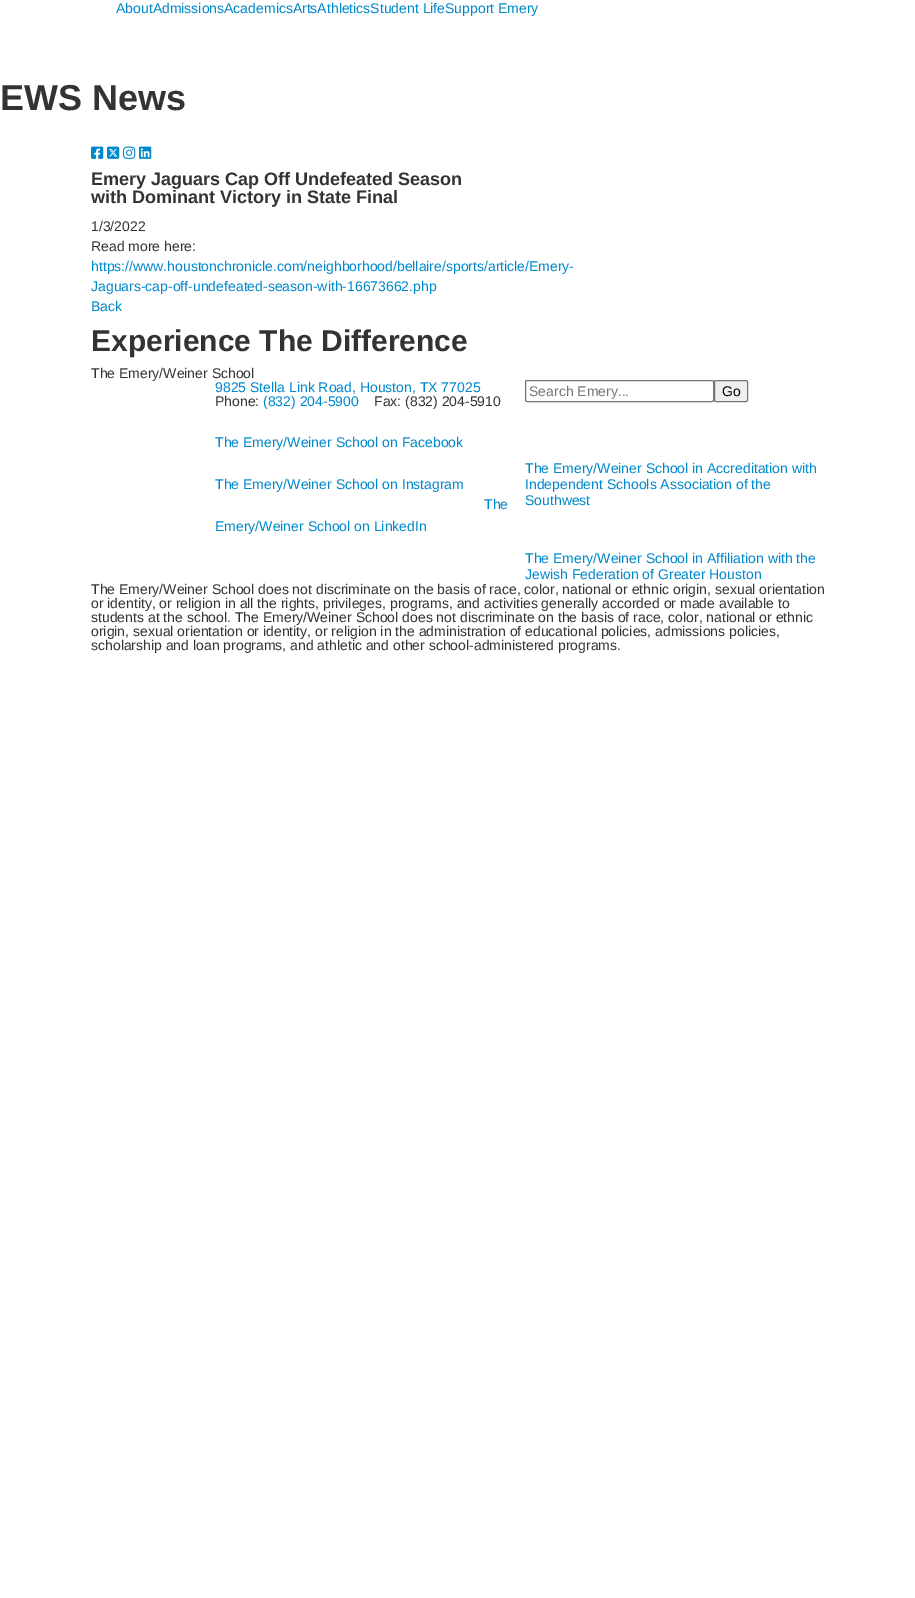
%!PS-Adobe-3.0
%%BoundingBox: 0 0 915 1598
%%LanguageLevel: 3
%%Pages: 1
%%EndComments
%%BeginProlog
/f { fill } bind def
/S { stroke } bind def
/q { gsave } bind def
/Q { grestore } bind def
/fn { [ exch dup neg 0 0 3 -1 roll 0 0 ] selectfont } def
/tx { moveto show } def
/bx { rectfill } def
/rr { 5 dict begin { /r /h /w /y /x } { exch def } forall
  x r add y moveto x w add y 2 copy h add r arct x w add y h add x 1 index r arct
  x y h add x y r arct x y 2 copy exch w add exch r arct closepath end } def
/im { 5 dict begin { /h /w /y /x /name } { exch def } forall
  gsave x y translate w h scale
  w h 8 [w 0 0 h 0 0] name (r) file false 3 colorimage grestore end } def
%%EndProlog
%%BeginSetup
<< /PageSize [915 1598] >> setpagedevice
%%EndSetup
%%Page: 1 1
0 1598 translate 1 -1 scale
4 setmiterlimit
1 setgray
0 0 915 1598 bx
/LiberationSans-Regular 14 fn
0 0.533 0.8 setrgbcolor
(AboutAdmissionsAcademicsArtsAthleticsStudent LifeSupport Emery) 116 13 tx
/LiberationSans-Bold 36 fn
0.2 setgray
(EWS News) 0 110 tx
(image0.raw) 91 146 13 13 im
(image1.raw) 107 146 13 13 im
(image2.raw) 123 146 13 13 im
(image3.raw) 139 146 13 13 im
/LiberationSans-Bold 18 fn
(Emery Jaguars Cap Off Undefeated Season) 91 185 tx
(with Dominant Victory in State Final) 91 203 tx
/LiberationSans-Regular 14 fn
(1/3/2022) 91 231 tx
(Read more here:) 91 251 tx
0 0.533 0.8 setrgbcolor
(https://www.houstonchronicle.com/neighborhood/bellaire/sports/article/Emery-) 91 271 tx
(Jaguars-cap-off-undefeated-season-with-16673662.php) 91 291 tx
(Back) 91 311 tx
/LiberationSans-Bold 30 fn
0.2 setgray
(Experience The Difference) 91 351 tx
/LiberationSans-Regular 14 fn
(The Emery/Weiner School) 91 378 tx
0 0.533 0.8 setrgbcolor
(9825 Stella Link Road, Houston, TX 77025) 215 392 tx
0.2 setgray
(Phone:) 215 406 tx
0 0.533 0.8 setrgbcolor
(\(832\) 204-5900) 263 406 tx
0.2 setgray
(Fax: \(832\) 204-5910) 374 406 tx
0 0.533 0.8 setrgbcolor
(The Emery/Weiner School on Facebook) 215 447 tx
(The Emery/Weiner School on Instagram) 215 489 tx
(The) 484 509 tx
(Emery/Weiner School on LinkedIn) 215 531 tx
0.463 setgray
525.5 380.5 188 21 1.5 rr S
0.459 setgray
(Search Emery...) 529 396 tx
0.937 setgray
714.5 380.5 33 21 1.5 rr q f Q
0.463 setgray
S
0 setgray
(Go) 722 396 tx
0 0.533 0.8 setrgbcolor
(The Emery/Weiner School in Accreditation with) 525 473 tx
(Independent Schools Association of the) 525 489 tx
(Southwest) 525 505 tx
(The Emery/Weiner School in Affiliation with the) 525 563 tx
(Jewish Federation of Greater Houston) 525 579 tx
0.2 setgray
(The Emery/Weiner School does not discriminate on the basis of race, color, national or ethnic origin, sexual orientation) 91 594 tx
(or identity, or religion in all the rights, privileges, programs, and activities generally accorded or made available to) 91 608 tx
(students at the school. The Emery/Weiner School does not discriminate on the basis of race, color, national or ethnic) 91 622 tx
(origin, sexual orientation or identity, or religion in the administration of educational policies, admissions policies,) 91 636 tx
(scholarship and loan programs, and athletic and other school-administered programs.) 91 650 tx
showpage
%%EOF
